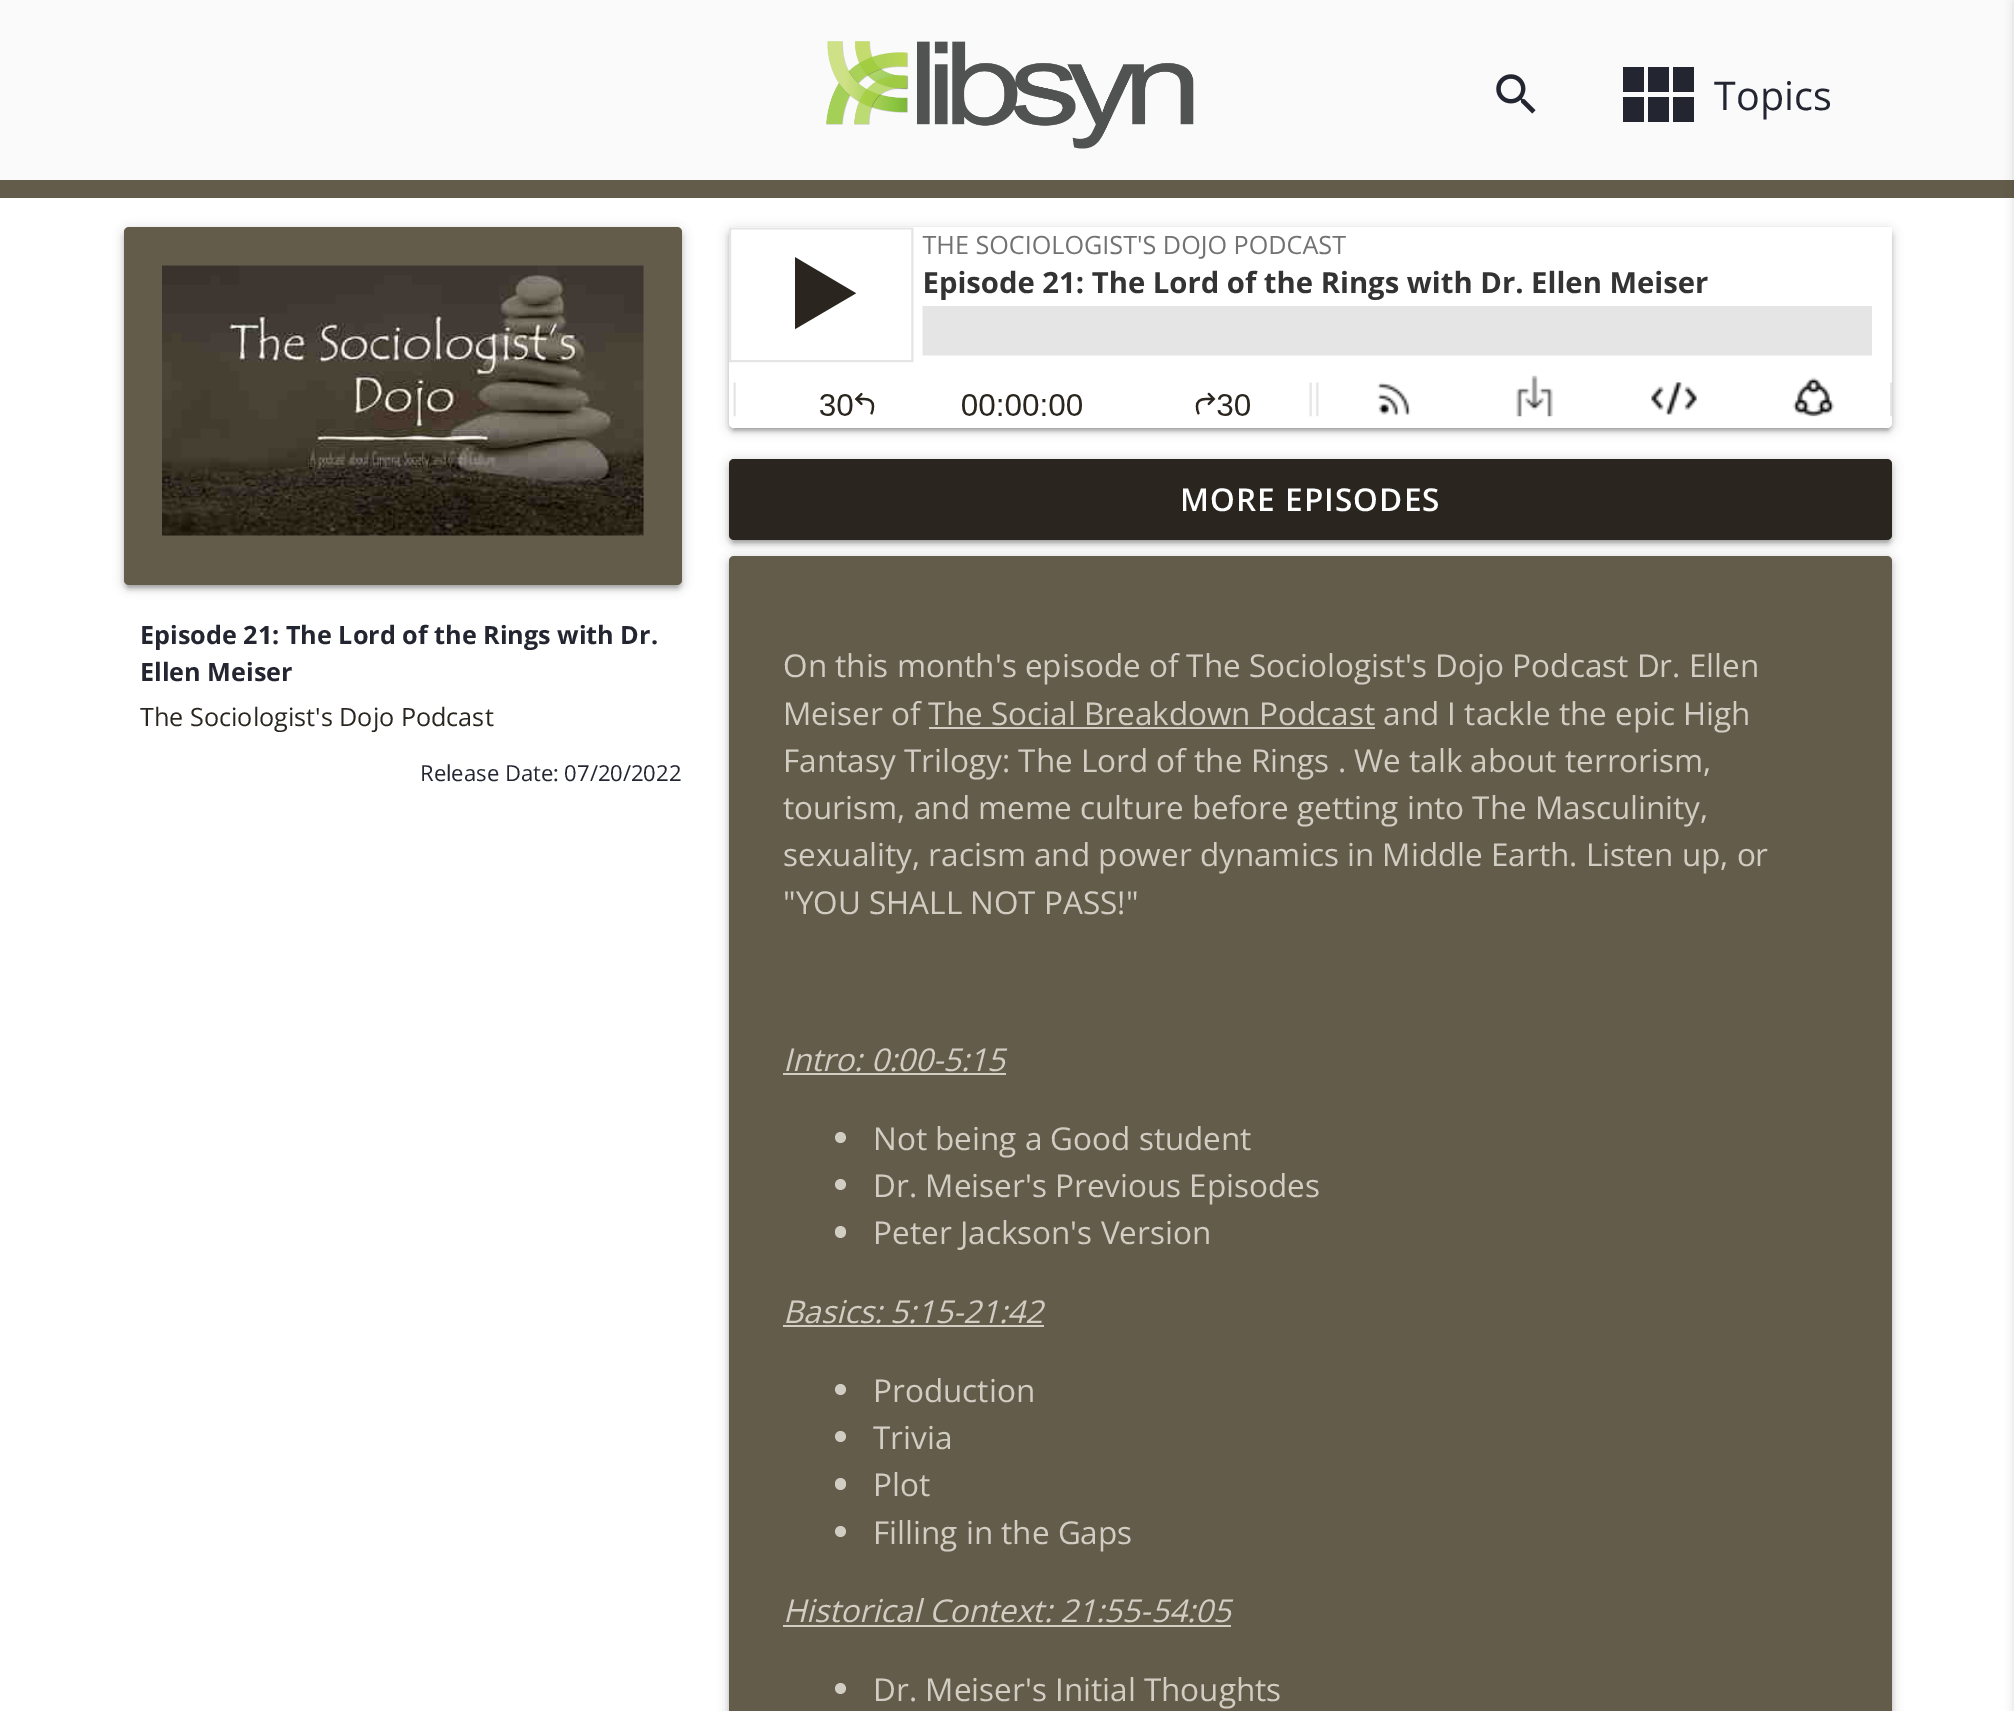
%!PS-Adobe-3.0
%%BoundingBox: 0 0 2014 1711
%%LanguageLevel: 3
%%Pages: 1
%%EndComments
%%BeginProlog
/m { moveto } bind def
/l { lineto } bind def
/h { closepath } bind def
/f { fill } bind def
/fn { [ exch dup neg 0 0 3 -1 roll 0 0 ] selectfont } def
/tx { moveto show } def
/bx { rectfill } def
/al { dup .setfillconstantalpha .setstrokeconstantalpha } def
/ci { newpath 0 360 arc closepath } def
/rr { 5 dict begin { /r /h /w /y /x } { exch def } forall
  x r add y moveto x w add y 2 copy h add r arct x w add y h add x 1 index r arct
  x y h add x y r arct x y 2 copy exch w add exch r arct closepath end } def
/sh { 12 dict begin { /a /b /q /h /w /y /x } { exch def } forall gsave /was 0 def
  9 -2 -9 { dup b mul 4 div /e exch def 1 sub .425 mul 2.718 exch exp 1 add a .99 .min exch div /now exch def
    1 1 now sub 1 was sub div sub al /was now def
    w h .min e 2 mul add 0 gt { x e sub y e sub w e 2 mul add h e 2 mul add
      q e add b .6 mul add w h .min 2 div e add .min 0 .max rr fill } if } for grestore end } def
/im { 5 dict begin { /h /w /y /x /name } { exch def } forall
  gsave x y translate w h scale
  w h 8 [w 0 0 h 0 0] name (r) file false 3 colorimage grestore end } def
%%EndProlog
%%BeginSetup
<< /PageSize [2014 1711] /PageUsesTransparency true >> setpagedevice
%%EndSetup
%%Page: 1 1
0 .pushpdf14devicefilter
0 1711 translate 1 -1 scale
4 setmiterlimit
1 setgray
0 0 2014 1711 bx
0.98 setgray
0 0 2014 180 bx
(image0.raw) 826 41 368 108 im
(image1.raw) 1496 74 40 40 im
0.137 0.145 0.188 setrgbcolor
1669 67 m 1669 92 l 1648 92 l 1648 67 l h 1673 92 m 1694 92 l 1694 67 l 1673 67 l h 1669 122 m 1669 97 l 1648 97 l 1648 122 l h 1673 97 m 1673 122 l 1694 122 l 1694 97 l h 1644 97 m 1623 97 l 1623 122 l 1644 122 l h 1644 92 m 1644 67 l 1623 67 l 1623 92 l h f
/OpenSans-Regular 39.5 fn
(Topics) 1714 110 tx
0.392 0.361 0.294 setrgbcolor
0 180 2014 18 bx
0 setgray
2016 2 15 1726 0 5.5 0.2 sh
729 230 1163 200 5 5.5 0.2 sh
734 239 1154 191 0 1 0.12 sh
729 232 1163 200 5 2 0.14 sh
1 setgray
729 227 1163 201 5 rr f
(image2.raw) 729 227 1163 190 im
0 setgray
729 461 1163 81 5 5.5 0.2 sh
734 470 1154 72 0 1 0.12 sh
729 464 1163 81 5 2 0.14 sh
0.165 0.149 0.122 setrgbcolor
729 459 1163 81 5 rr f
/OpenSans-SemiBold 31.5 fn
1 setgray
1180 511 m 1.1 0 (MORE EPISODES) ashow
0 setgray
124 230 558 357 5 5.5 0.2 sh
128 239 549 348 0 1 0.12 sh
124 232 558 358 5 2 0.14 sh
0.392 0.361 0.294 setrgbcolor
124 227 558 358 5 rr f
(image3.raw) 162 265 482 271 im
/OpenSans-Bold 25.2 fn
0.137 0.145 0.188 setrgbcolor
(Episode 21: The Lord of the Rings with Dr.) 140 644 tx
(Ellen Meiser) 140 681 tx
/OpenSans-Regular 25.2 fn
0.165 0.149 0.122 setrgbcolor
(The Sociologist's Dojo Podcast) 140 726 tx
/OpenSans-Regular 22 fn
0.137 0.145 0.188 setrgbcolor
(Release Date: 07/20/2022) 420 781 tx
0 setgray
729 558 1163 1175 5 5.5 0.2 sh
729 560 1163 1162 5 2 0.14 sh
0.392 0.361 0.294 setrgbcolor
729 556 1163 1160 5 rr f
/OpenSans-Regular 31.5 fn
0.824 0.804 0.765 setrgbcolor
(On this month's episode of The Sociologist's Dojo Podcast Dr. Ellen) 783 677 tx
(Meiser of The Social Breakdown Podcast and I tackle the epic High) 783 725 tx
929 727 446 2 bx
(Fantasy Trilogy: The Lord of the Rings . We talk about terrorism,) 783 772 tx
(tourism, and meme culture before getting into The Masculinity,) 783 819 tx
(sexuality, racism and power dynamics in Middle Earth. Listen up, or) 783 866 tx
("YOU SHALL NOT PASS!") 783 914 tx
/OpenSans-Italic 31.5 fn
(Intro: 0:00-5:15) 783 1071 tx
783 1073 223 2 bx
840.5 1137.5 5.5 ci f
/OpenSans-Regular 31.5 fn
(Not being a Good student) 873 1150 tx
840.5 1184.5 5.5 ci f
(Dr. Meiser's Previous Episodes) 873 1197 tx
835 1226 11 12 5.5 rr f
(Peter Jackson's Version) 873 1244 tx
/OpenSans-Italic 31.5 fn
(Basics: 5:15-21:42) 783 1323 tx
783 1325 261 2 bx
840.5 1389.5 5.5 ci f
/OpenSans-Regular 31.5 fn
(Production) 873 1402 tx
840.5 1436.5 5.5 ci f
(Trivia) 873 1449 tx
835 1478 11 12 5.5 rr f
(Plot) 873 1496 tx
840.5 1531.5 5.5 ci f
(Filling in the Gaps) 873 1544 tx
/OpenSans-Italic 31.5 fn
(Historical Context: 21:55-54:05) 783 1622 tx
783 1625 448 2 bx
840.5 1688.5 5.5 ci f
/OpenSans-Regular 31.5 fn
(Dr. Meiser's Initial Thoughts) 873 1701 tx
.poppdf14devicefilter showpage
%%EOF
